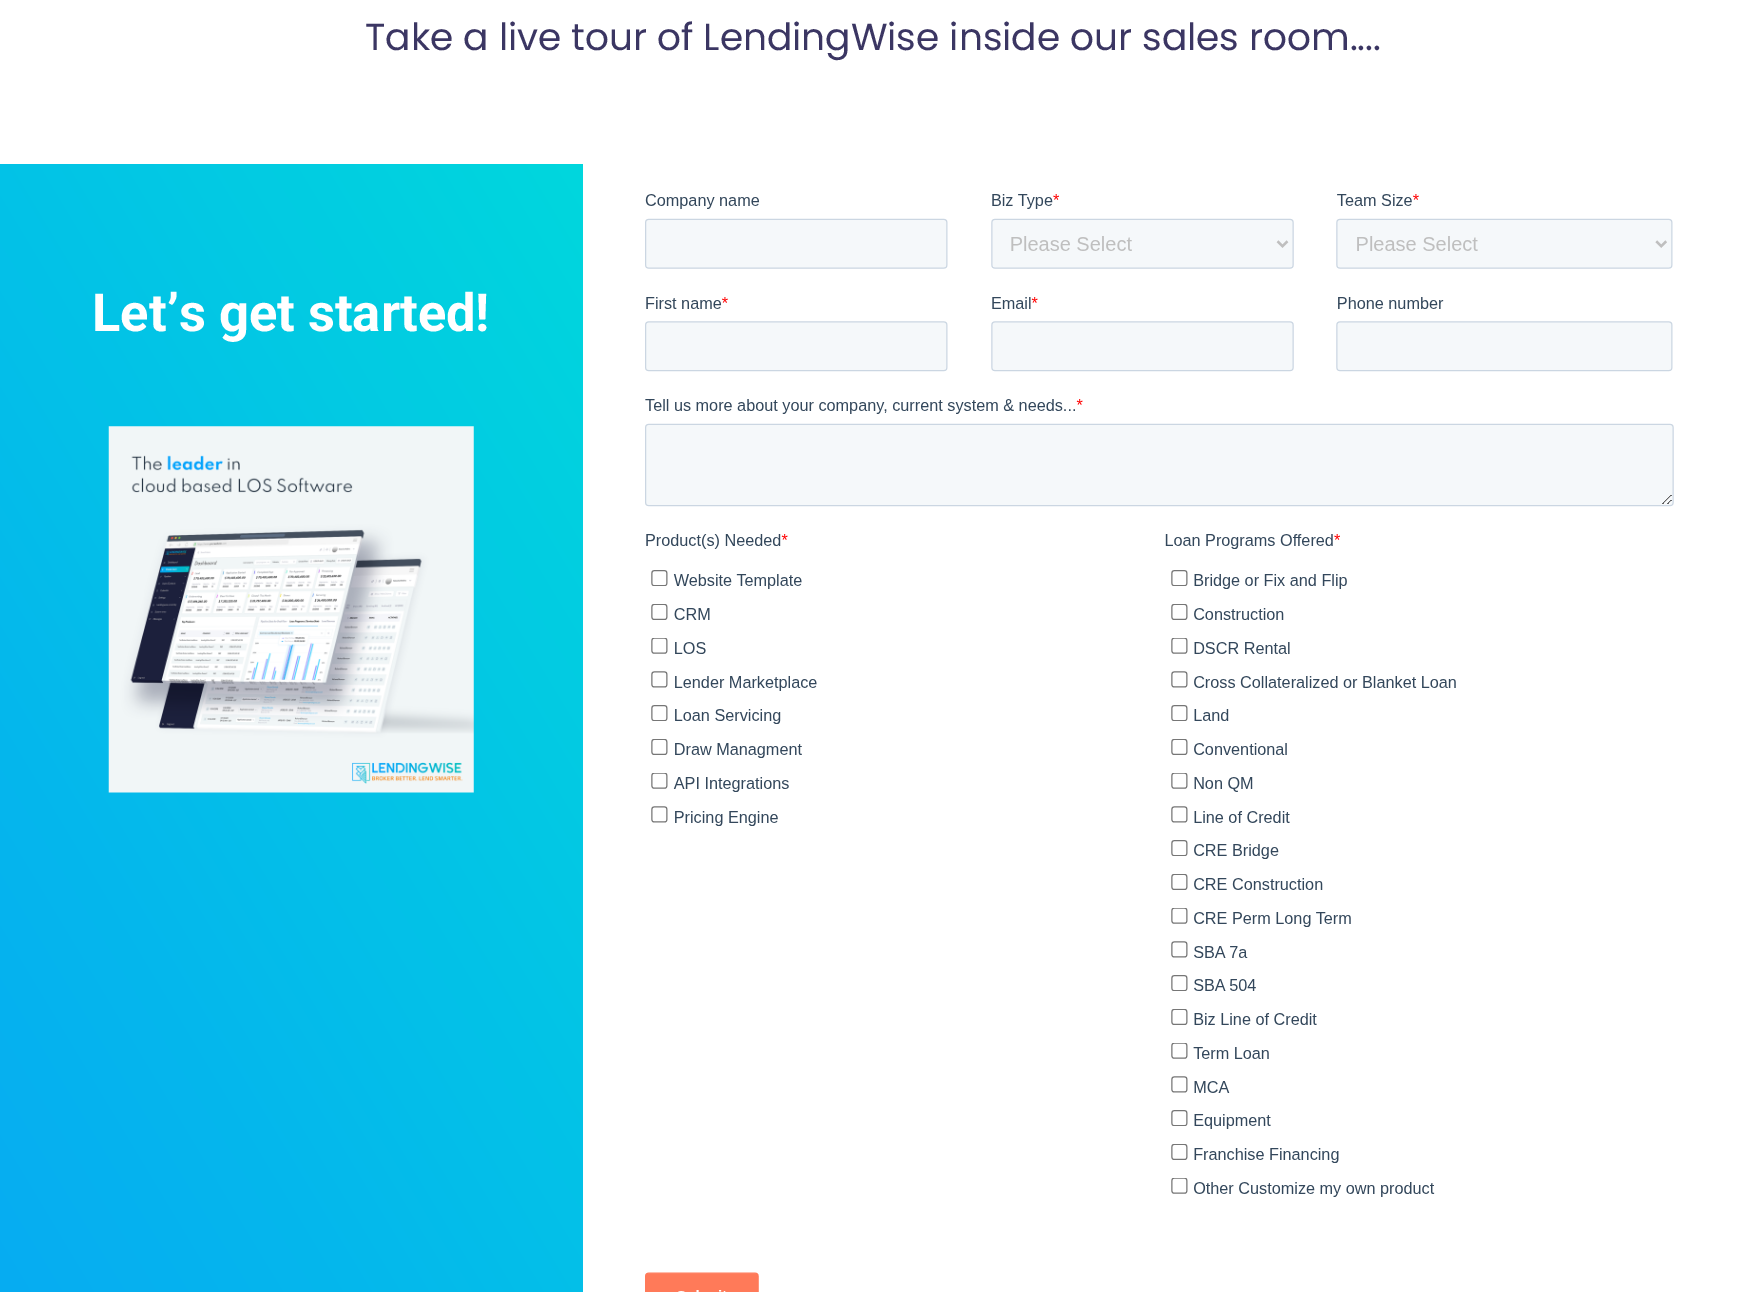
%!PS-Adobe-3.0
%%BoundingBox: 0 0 1746 1292
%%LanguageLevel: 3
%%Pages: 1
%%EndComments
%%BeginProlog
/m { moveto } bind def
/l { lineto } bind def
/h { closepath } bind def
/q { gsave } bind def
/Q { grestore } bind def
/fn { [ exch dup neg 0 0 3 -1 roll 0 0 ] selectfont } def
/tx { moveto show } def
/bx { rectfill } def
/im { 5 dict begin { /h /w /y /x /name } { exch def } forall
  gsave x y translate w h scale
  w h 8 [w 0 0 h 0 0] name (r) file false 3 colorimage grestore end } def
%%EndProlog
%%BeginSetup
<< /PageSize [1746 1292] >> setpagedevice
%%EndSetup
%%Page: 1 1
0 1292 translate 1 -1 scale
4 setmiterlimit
1 setgray
0 0 1746 1292 bx
/Poppins-Regular 37.5 fn
0.231 0.212 0.388 setrgbcolor
(Take a live tour of LendingWise inside our sales room....) 365 50 tx
q 0 164 m 583 164 l 583 1292 l 0 1292 l h clip newpath
<< /ShadingType 2 /ColorSpace /DeviceRGB /Coords [771 477 -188 1053] /Extend [true true] /Function << /FunctionType 2 /Domain [0 1] /C0 [0 0.843 0.867] /C1 [0.027 0.667 0.953] /N 1 >> >> shfill Q
/Roboto-Bold 52.5 fn
1 setgray
(Let’s get started!) 92 331 tx
(image0.raw) 108 426 366 367 im
(image1.raw) 645 194 1029 1098 im
showpage
%%EOF
